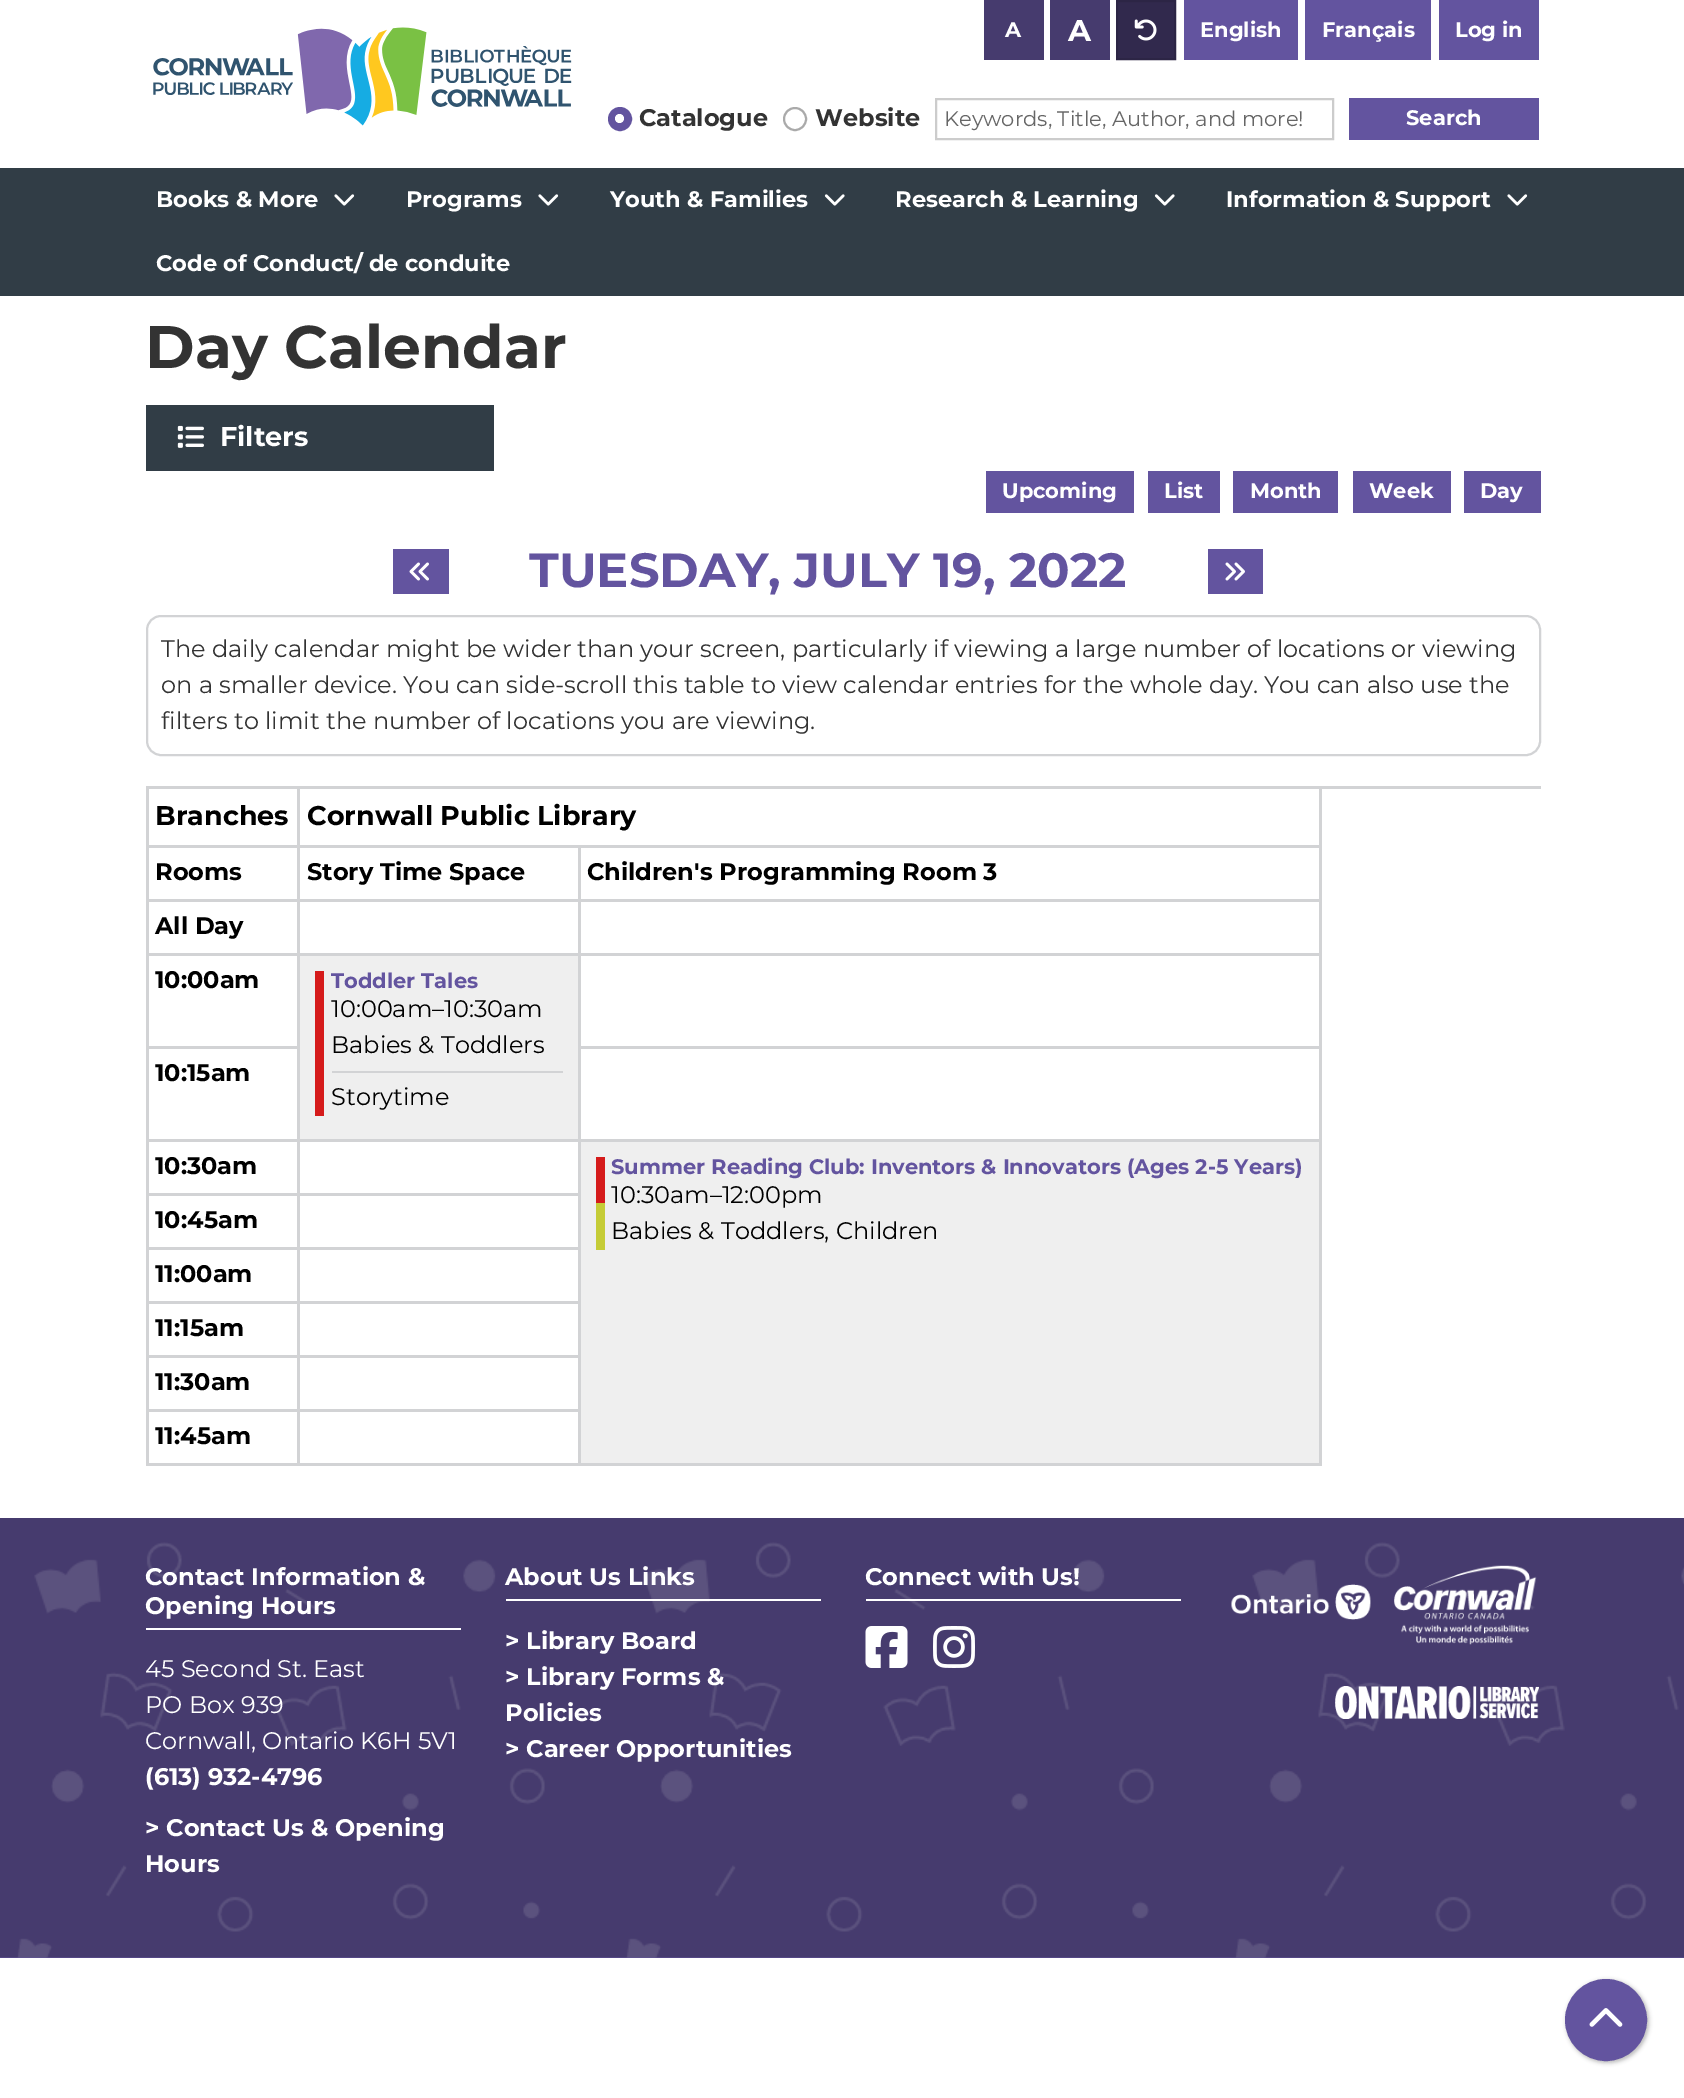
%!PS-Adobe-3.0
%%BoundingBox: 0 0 1684 2098
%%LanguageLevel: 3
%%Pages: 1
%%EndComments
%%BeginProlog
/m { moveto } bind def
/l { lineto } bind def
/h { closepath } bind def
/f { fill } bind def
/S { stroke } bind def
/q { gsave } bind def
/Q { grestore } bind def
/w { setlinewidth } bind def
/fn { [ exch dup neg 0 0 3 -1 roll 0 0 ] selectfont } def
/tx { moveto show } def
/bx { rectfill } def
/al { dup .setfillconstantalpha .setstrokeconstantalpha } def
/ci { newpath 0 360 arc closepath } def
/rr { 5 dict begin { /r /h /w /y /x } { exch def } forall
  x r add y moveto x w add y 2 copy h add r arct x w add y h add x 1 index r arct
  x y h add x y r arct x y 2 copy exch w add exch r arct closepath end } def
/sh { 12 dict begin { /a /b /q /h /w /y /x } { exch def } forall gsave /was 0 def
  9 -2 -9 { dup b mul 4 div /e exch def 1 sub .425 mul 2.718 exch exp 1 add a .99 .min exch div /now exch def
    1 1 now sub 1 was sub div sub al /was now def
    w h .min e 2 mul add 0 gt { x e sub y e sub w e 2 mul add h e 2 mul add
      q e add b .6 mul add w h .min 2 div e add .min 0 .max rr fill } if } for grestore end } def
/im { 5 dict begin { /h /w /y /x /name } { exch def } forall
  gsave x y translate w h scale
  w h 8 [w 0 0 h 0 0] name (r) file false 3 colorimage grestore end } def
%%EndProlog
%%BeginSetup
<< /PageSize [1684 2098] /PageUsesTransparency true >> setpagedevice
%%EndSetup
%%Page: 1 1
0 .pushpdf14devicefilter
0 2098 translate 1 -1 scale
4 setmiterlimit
1 setgray
0 0 1684 2098 bx
(image0.raw) 153 27 419 99 im
0.275 0.231 0.431 setrgbcolor
984 0 60 60 bx
/Montserrat-Bold 21 fn
1 setgray
(A) 1005 37 tx
0.275 0.231 0.431 setrgbcolor
1050 0 60 60 bx
/Montserrat-Bold 30 fn
1 setgray
(A) 1068 41 tx
0.192 0.161 0.302 setrgbcolor
1117 1 m 1175 1 l 1175 59 l 1117 59 l h q f Q
0.173 0.145 0.271 setrgbcolor
2 w
S
(image1.raw) 1134 19 23 22 im
0.388 0.329 0.624 setrgbcolor
1184 0 114 60 bx
/Montserrat-Bold 21 fn
1 setgray
(English) 1200 37 tx
0.388 0.329 0.624 setrgbcolor
1305 0 126 60 bx
1 setgray
(Français) 1322 37 tx
0.388 0.329 0.624 setrgbcolor
1439 0 100 60 bx
1 setgray
(Log in) 1455 37 tx
0.388 0.329 0.624 setrgbcolor
620 119 11 ci q f Q
S
/Montserrat-Bold 24 fn
0.2 setgray
(Catalogue) 639 126 tx
1 setgray
619.5 118.5 4.5 ci f
0.667 setgray
795 119 11 ci S
0.2 setgray
(Website) 815 126 tx
0.8 setgray
936 99 397 40 rectstroke
/Montserrat-Regular 21 fn
0.4 setgray
(Keywords, Title, Author, and more!) 944 126 tx
0.388 0.329 0.624 setrgbcolor
1349 98 190 42 bx
/Montserrat-Bold 21 fn
1 setgray
(Search) 1406 125 tx
0.192 0.239 0.275 setrgbcolor
0 168 1684 128 bx
/Montserrat-Bold 22.5 fn
1 setgray
(Books & More) 156 207 tx
(image2.raw) 334 194 21 12 im
(Programs) 406 207 tx
(image2.raw) 538 194 21 12 im
(Youth & Families) 610 207 tx
(image3.raw) 824 194 21 12 im
(Research & Learning) 895 207 tx
(image3.raw) 1154 194 21 12 im
(Information & Support) 1226 207 tx
(image2.raw) 1507 194 21 12 im
(Code of Conduct/ de conduite) 156 271 tx
/Montserrat-Bold 60 fn
0.2 setgray
(Day Calendar) 145 368 tx
0.192 0.239 0.275 setrgbcolor
146 405 348 66 bx
(image4.raw) 177 425 27 23 im
/Montserrat-Bold 27 fn
1 setgray
(Filters) 220 446 tx
0.388 0.329 0.624 setrgbcolor
986 471 148 42 bx
/Montserrat-Bold 21 fn
1 setgray
(Upcoming) 1002 498 tx
0.388 0.329 0.624 setrgbcolor
1148 471 72 42 bx
1 setgray
(List) 1164 498 tx
0.388 0.329 0.624 setrgbcolor
1233 471 105 42 bx
1 setgray
(Month) 1250 498 tx
0.388 0.329 0.624 setrgbcolor
1353 471 98 42 bx
1 setgray
(Week) 1369 498 tx
0.388 0.329 0.624 setrgbcolor
1464 471 77 42 bx
1 setgray
(Day) 1480 498 tx
0.388 0.329 0.624 setrgbcolor
393 549 56 45 bx
(image5.raw) 409 562 20 19 im
/Montserrat-Bold 48 fn
(TUESDAY, JULY 19, 2022) 529 587 tx
1208 549 55 45 bx
(image6.raw) 1225 562 20 19 im
0.824 0.827 0.835 setrgbcolor
147 616 1393 139 14 rr S
/Montserrat-Regular 24 fn
0.2 setgray
(The daily calendar might be wider than your screen, particularly if viewing a large number of locations or viewing) 161 657 tx
(on a smaller device. You can side-scroll this table to view calendar entries for the whole day. You can also use the) 161 693 tx
(filters to limit the number of locations you are viewing.) 161 729 tx
0.824 0.827 0.835 setrgbcolor
146 786 1395 3 bx
146 786 3 680 bx
297 789 3 677 bx
149 845 151 3 bx
/Montserrat-Bold 27 fn
0 setgray
(Branches) 155 825 tx
0.824 0.827 0.835 setrgbcolor
1319 789 3 677 bx
300 845 1022 3 bx
0 setgray
(Cornwall Public Library) 307 825 tx
/Montserrat-Bold 24 fn
(Rooms) 155 880 tx
0.824 0.827 0.835 setrgbcolor
578 848 3 618 bx
149 899 1173 3 bx
0 setgray
(Story Time Space) 307 880 tx
(Children's Programming Room 3) 587 880 tx
(All Day) 155 934 tx
0.824 0.827 0.835 setrgbcolor
149 953 1173 3 bx
149 1046 151 3 bx
0 setgray
(10:00am) 155 988 tx
0.937 setgray
300 956 278 183 bx
0.824 0.827 0.835 setrgbcolor
149 1139 1173 3 bx
0.835 0.106 0.106 setrgbcolor
315 971 9 145 bx
/Montserrat-Bold 21 fn
0.388 0.329 0.624 setrgbcolor
(Toddler Tales) 331 988 tx
/Montserrat-Regular 24 fn
0 setgray
(10:00am–10:30am) 331 1017 tx
(Babies & Toddlers) 331 1053 tx
0.824 0.827 0.835 setrgbcolor
332 1071 231 2 bx
0 setgray
(Storytime) 331 1105 tx
0.824 0.827 0.835 setrgbcolor
581 1046 741 3 bx
/Montserrat-Bold 24 fn
0 setgray
(10:15am) 155 1081 tx
(10:30am) 155 1174 tx
0.937 setgray
581 1142 738 321 bx
0.824 0.827 0.835 setrgbcolor
149 1463 1173 3 bx
0.835 0.106 0.106 setrgbcolor
596 1157 9 46 bx
0.773 0.8 0.216 setrgbcolor
596 1203 9 47 bx
/Montserrat-Bold 21 fn
0.388 0.329 0.624 setrgbcolor
(Summer Reading Club: Inventors & Innovators \(Ages 2-5 Years\)) 611 1174 tx
/Montserrat-Regular 24 fn
0 setgray
(10:30am–12:00pm) 611 1203 tx
(Babies & Toddlers, Children) 611 1239 tx
0.824 0.827 0.835 setrgbcolor
149 1193 432 3 bx
/Montserrat-Bold 24 fn
0 setgray
(10:45am) 155 1228 tx
0.824 0.827 0.835 setrgbcolor
149 1247 432 3 bx
0 setgray
(11:00am) 155 1282 tx
0.824 0.827 0.835 setrgbcolor
149 1301 432 3 bx
0 setgray
(11:15am) 155 1336 tx
0.824 0.827 0.835 setrgbcolor
149 1355 432 3 bx
0 setgray
(11:30am) 155 1390 tx
0.824 0.827 0.835 setrgbcolor
149 1409 432 3 bx
0 setgray
(11:45am) 155 1444 tx
0.388 0.329 0.624 setrgbcolor
0 1957 1684 1 bx
(image7.raw) 0 1518 1684 440 im
1 setgray
146 1628 315 2 bx
(Contact Information &) 145 1585 tx
(Opening Hours) 145 1614 tx
/Montserrat-Regular 24 fn
(45 Second St. East) 145 1677 tx
(PO Box 939) 145 1713 tx
(Cornwall, Ontario K6H 5V1) 145 1749 tx
/Montserrat-Bold 24 fn
(\(613\) 932-4796) 145 1785 tx
(> Contact Us & Opening) 145 1836 tx
(Hours) 145 1872 tx
506 1599 315 2 bx
(About Us Links) 505 1585 tx
(> Library Board) 505 1649 tx
(> Library Forms &) 505 1685 tx
(Policies) 505 1721 tx
(> Career Opportunities) 505 1757 tx
866 1599 315 2 bx
(Connect with Us!) 865 1585 tx
(image8.raw) 865 1626 43 42 im
(image9.raw) 933 1626 42 42 im
(image10.raw) 1231 1584 140 36 im
(image11.raw) 1394 1565 143 80 im
(image12.raw) 1335 1686 204 33 im
0 setgray
1566 1980 83 83 41.5 2 0.25 sh
0.388 0.329 0.624 setrgbcolor
1606 2020 40 ci q f Q
S
(image13.raw) 1589 2008 34 19 im
.poppdf14devicefilter showpage
%%EOF
